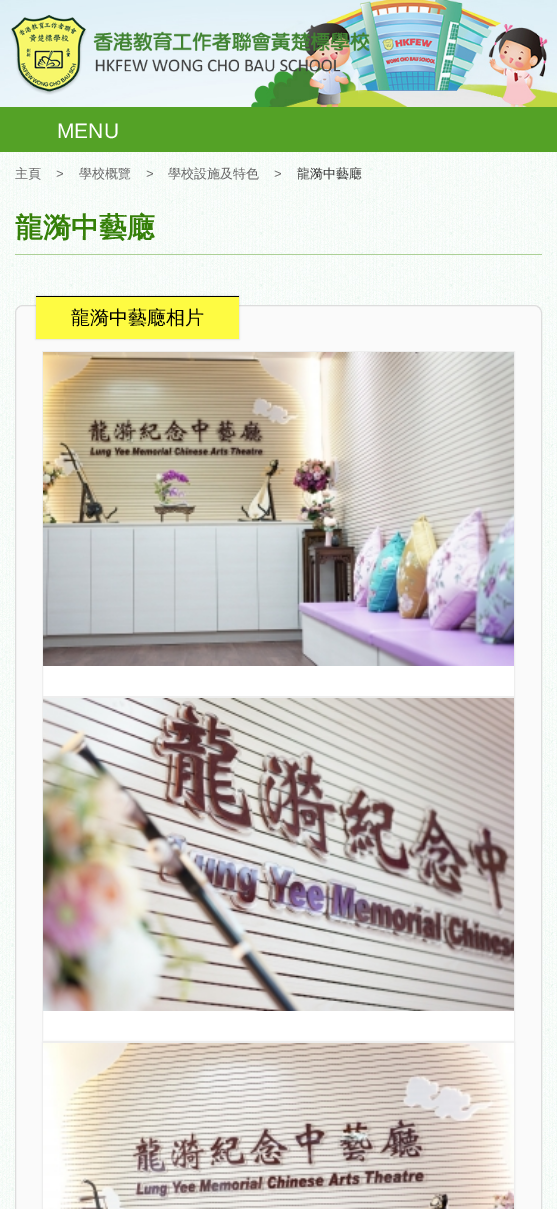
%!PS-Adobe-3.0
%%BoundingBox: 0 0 557 1209
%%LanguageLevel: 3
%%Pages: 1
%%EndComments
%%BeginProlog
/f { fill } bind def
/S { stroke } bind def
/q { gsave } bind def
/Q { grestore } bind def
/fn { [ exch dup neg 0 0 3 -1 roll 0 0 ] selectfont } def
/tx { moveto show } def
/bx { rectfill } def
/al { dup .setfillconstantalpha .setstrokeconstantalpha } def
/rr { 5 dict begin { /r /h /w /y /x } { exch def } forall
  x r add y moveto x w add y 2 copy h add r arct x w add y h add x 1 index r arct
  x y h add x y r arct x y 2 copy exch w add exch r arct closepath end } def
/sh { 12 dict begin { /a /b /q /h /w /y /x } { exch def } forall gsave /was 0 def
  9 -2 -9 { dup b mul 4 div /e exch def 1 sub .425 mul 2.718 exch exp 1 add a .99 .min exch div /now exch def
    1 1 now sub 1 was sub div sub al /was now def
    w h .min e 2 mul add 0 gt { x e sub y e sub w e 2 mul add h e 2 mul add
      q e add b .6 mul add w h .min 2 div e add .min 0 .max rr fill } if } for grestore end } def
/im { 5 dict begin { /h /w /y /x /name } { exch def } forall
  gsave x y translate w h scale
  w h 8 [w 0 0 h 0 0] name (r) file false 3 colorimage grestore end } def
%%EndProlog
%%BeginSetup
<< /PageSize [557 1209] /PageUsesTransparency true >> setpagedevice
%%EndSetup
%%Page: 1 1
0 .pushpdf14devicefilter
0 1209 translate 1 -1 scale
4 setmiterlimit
1 setgray
0 0 557 1209 bx
(image0.raw) 0 152 557 1057 im
(image1.raw) 0 0 557 107 im
(image2.raw) 10 15 360 80 im
0.329 0.635 0.149 setrgbcolor
0 107 557 45 bx
/LiberationSans-Regular 21 fn
1 setgray
(MENU) 57 138 tx
/WenQuanYiZenHei-Medium 13 fn
0.4 setgray
(主頁) 15 178 tx
/LiberationSans-Regular 13 fn
(>) 56 178 tx
/WenQuanYiZenHei-Medium 13 fn
(學校概覽) 79 178 tx
/LiberationSans-Regular 13 fn
(>) 146 178 tx
/WenQuanYiZenHei-Medium 13 fn
(學校設施及特色) 168 178 tx
/LiberationSans-Regular 13 fn
(>) 274 178 tx
/WenQuanYiZenHei-Medium 13 fn
0.2 setgray
(龍漪中藝廰) 297 178 tx
0.675 0.816 0.592 setrgbcolor
15 254 527 1 bx
/WenQuanYiZenHei-Bold 28 fn
0.208 0.502 0.035 setrgbcolor
(龍漪中藝廰) 15 237 tx
0.98 setgray
15.5 305.5 526 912 7.5 rr q f Q
0.867 setgray
S
0 setgray
36 296 203 43 0 1 0.2 sh
0.996 0.984 0.259 setrgbcolor
36 297 203 42 bx
0 setgray
36 296 203 1 bx
/WenQuanYiZenHei-Medium 19 fn
(龍漪中藝廰相片) 71 324 tx
1 setgray
43 666 471 30 bx
0.933 setgray
42.5 351.5 472 345 rectstroke
(image3.raw) 43 352 471 314 im
1 setgray
43 1011 471 30 bx
0.933 setgray
42.5 697.5 472 344 rectstroke
(image4.raw) 43 698 471 313 im
42 1042 473 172 0 1.5 1 sh
42.5 1042.5 472 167 rectstroke
(image5.raw) 43 1043 471 166 im
.poppdf14devicefilter showpage
%%EOF
